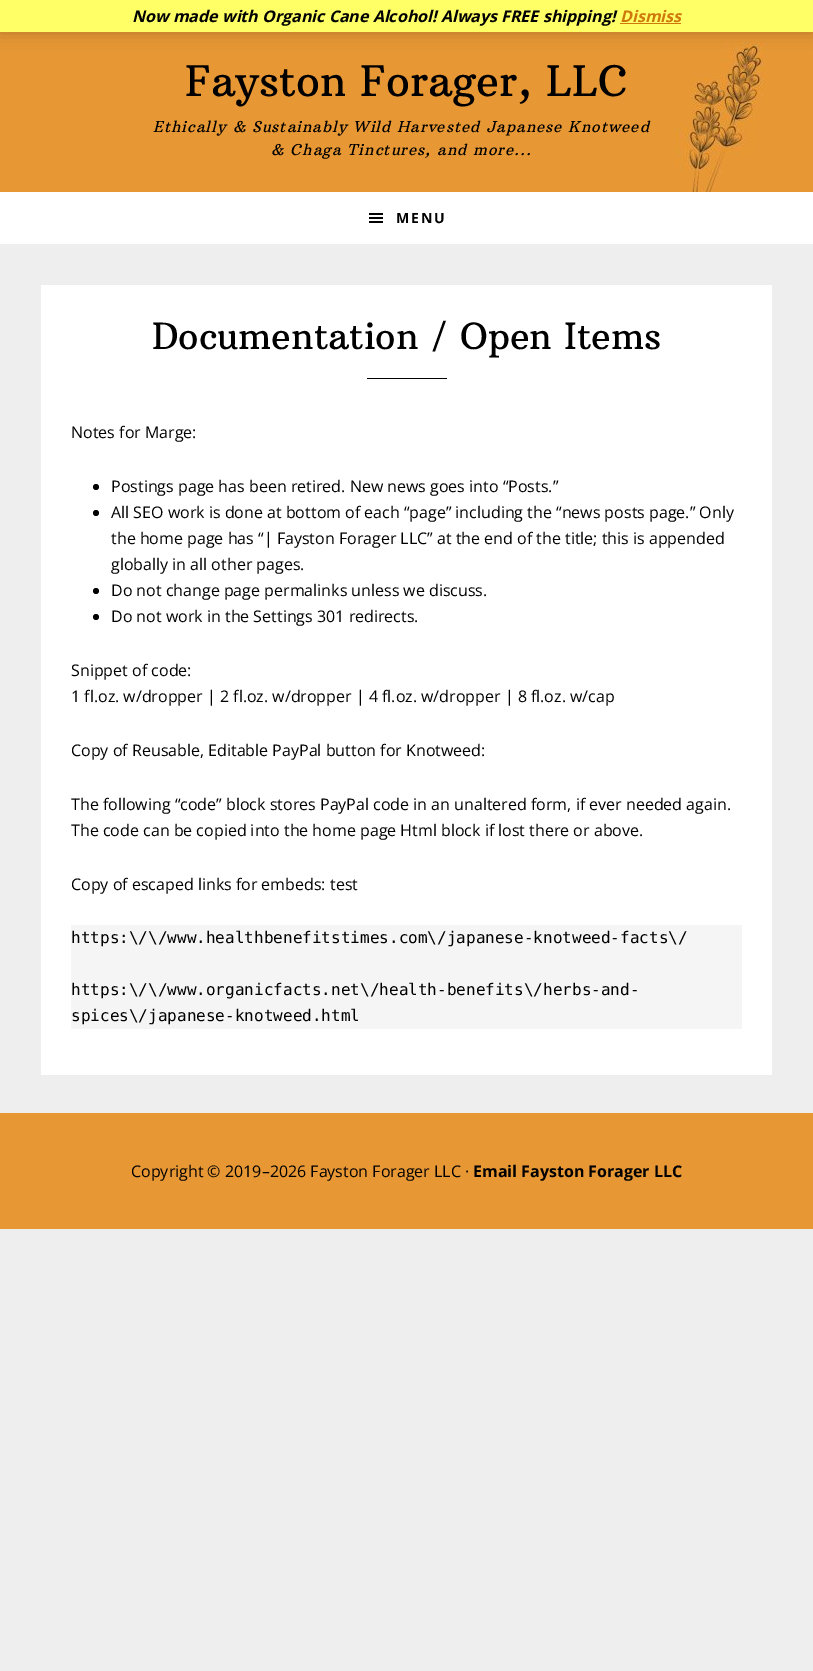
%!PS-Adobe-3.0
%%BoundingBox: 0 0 813 1671
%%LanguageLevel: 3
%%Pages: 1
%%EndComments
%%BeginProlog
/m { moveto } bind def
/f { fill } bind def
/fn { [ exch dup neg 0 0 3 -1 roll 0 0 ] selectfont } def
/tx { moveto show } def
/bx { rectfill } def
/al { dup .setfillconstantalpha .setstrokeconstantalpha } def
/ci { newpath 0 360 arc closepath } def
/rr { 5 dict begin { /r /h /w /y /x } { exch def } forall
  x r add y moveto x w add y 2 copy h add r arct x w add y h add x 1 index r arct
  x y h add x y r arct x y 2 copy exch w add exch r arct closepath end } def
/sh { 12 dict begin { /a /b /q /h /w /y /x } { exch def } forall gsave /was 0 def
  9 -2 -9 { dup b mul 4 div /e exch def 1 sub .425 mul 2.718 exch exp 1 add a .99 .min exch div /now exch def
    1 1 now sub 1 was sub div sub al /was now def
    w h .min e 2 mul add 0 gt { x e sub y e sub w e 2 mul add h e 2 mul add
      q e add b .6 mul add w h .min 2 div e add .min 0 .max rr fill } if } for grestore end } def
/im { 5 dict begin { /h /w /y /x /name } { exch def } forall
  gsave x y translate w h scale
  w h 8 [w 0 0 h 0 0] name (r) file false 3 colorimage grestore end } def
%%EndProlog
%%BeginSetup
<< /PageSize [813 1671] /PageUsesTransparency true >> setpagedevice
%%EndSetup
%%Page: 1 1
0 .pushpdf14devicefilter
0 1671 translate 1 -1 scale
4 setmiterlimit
0.933 setgray
0 0 813 1671 bx
0.906 0.592 0.204 setrgbcolor
0 32 813 160 bx
(image0.raw) 676 42 91 150 im
0 setgray
0 1 813 32 0 8 0.2 sh
1 1 0.4 setrgbcolor
0 0 813 32 bx
/OpenSans-BoldItalic 16 fn
0 setgray
(Now made with Organic Cane Alcohol! Always FREE shipping!) 132 22 tx
0.812 0.471 0.047 setrgbcolor
(Dismiss) 620 22 tx
620 23 61 1 bx
/ArbutusSlab-Regular 42 fn
0 setgray
(Fayston Forager, LLC) 185 96 tx
/ArbutusSlab-Italic 15 fn
153 132 m 1 0 (Ethically & Sustainably Wild Harvested Japanese Knotweed) ashow
271 155 m 1 0 (& Chaga Tinctures, and more...) ashow
1 setgray
0 192 813 52 bx
(image1.raw) 369 213 14 10 im
/OpenSans-Bold 14 fn
0 setgray
396 223 m 2 0 (MENU) ashow
1 setgray
41 285 731 790 bx
/ArbutusSlab-Regular 36 fn
0 setgray
(Documentation / Open Items) 152 349 tx
367 378 80 1 bx
/OpenSans-Regular 16 fn
(Notes for Marge:) 71 438 tx
96 487 3 ci f
(Postings page has been retired. New news goes into “Posts.”) 111 492 tx
96 513 3 ci f
(All SEO work is done at bottom of each “page” including the “news posts page.” Only) 111 518 tx
(the home page has “| Fayston Forager LLC” at the end of the title; this is appended) 111 544 tx
(globally in all other pages.) 111 570 tx
96 591 3 ci f
(Do not change page permalinks unless we discuss.) 111 596 tx
96 617 3 ci f
(Do not work in the Settings 301 redirects.) 111 622 tx
(Snippet of code:) 71 676 tx
(1 fl.oz. w/dropper | 2 fl.oz. w/dropper | 4 fl.oz. w/dropper | 8 fl.oz. w/cap) 71 702 tx
(Copy of Reusable, Editable PayPal button for Knotweed:) 71 756 tx
(The following “code” block stores PayPal code in an unaltered form, if ever needed again.) 71 810 tx
(The code can be copied into the home page Html block if lost there or above.) 71 836 tx
(Copy of escaped links for embeds: test) 71 890 tx
0.961 setgray
71 925 671 104 bx
/DejaVuSansMono-Regular 16 fn
0 setgray
(https:\\/\\/www.healthbenefitstimes.com\\/japanese-knotweed-facts\\/) 71 943 tx
(https:\\/\\/www.organicfacts.net\\/health-benefits\\/herbs-and-) 71 995 tx
(spices\\/japanese-knotweed.html) 71 1021 tx
0.906 0.592 0.204 setrgbcolor
0 1113 813 116 bx
/OpenSans-Regular 16 fn
0 setgray
(Copyright © 2019–2026 Fayston Forager LLC ·) 131 1177 tx
/OpenSans-Bold 16 fn
(Email Fayston Forager LLC) 473 1177 tx
.poppdf14devicefilter showpage
%%EOF
